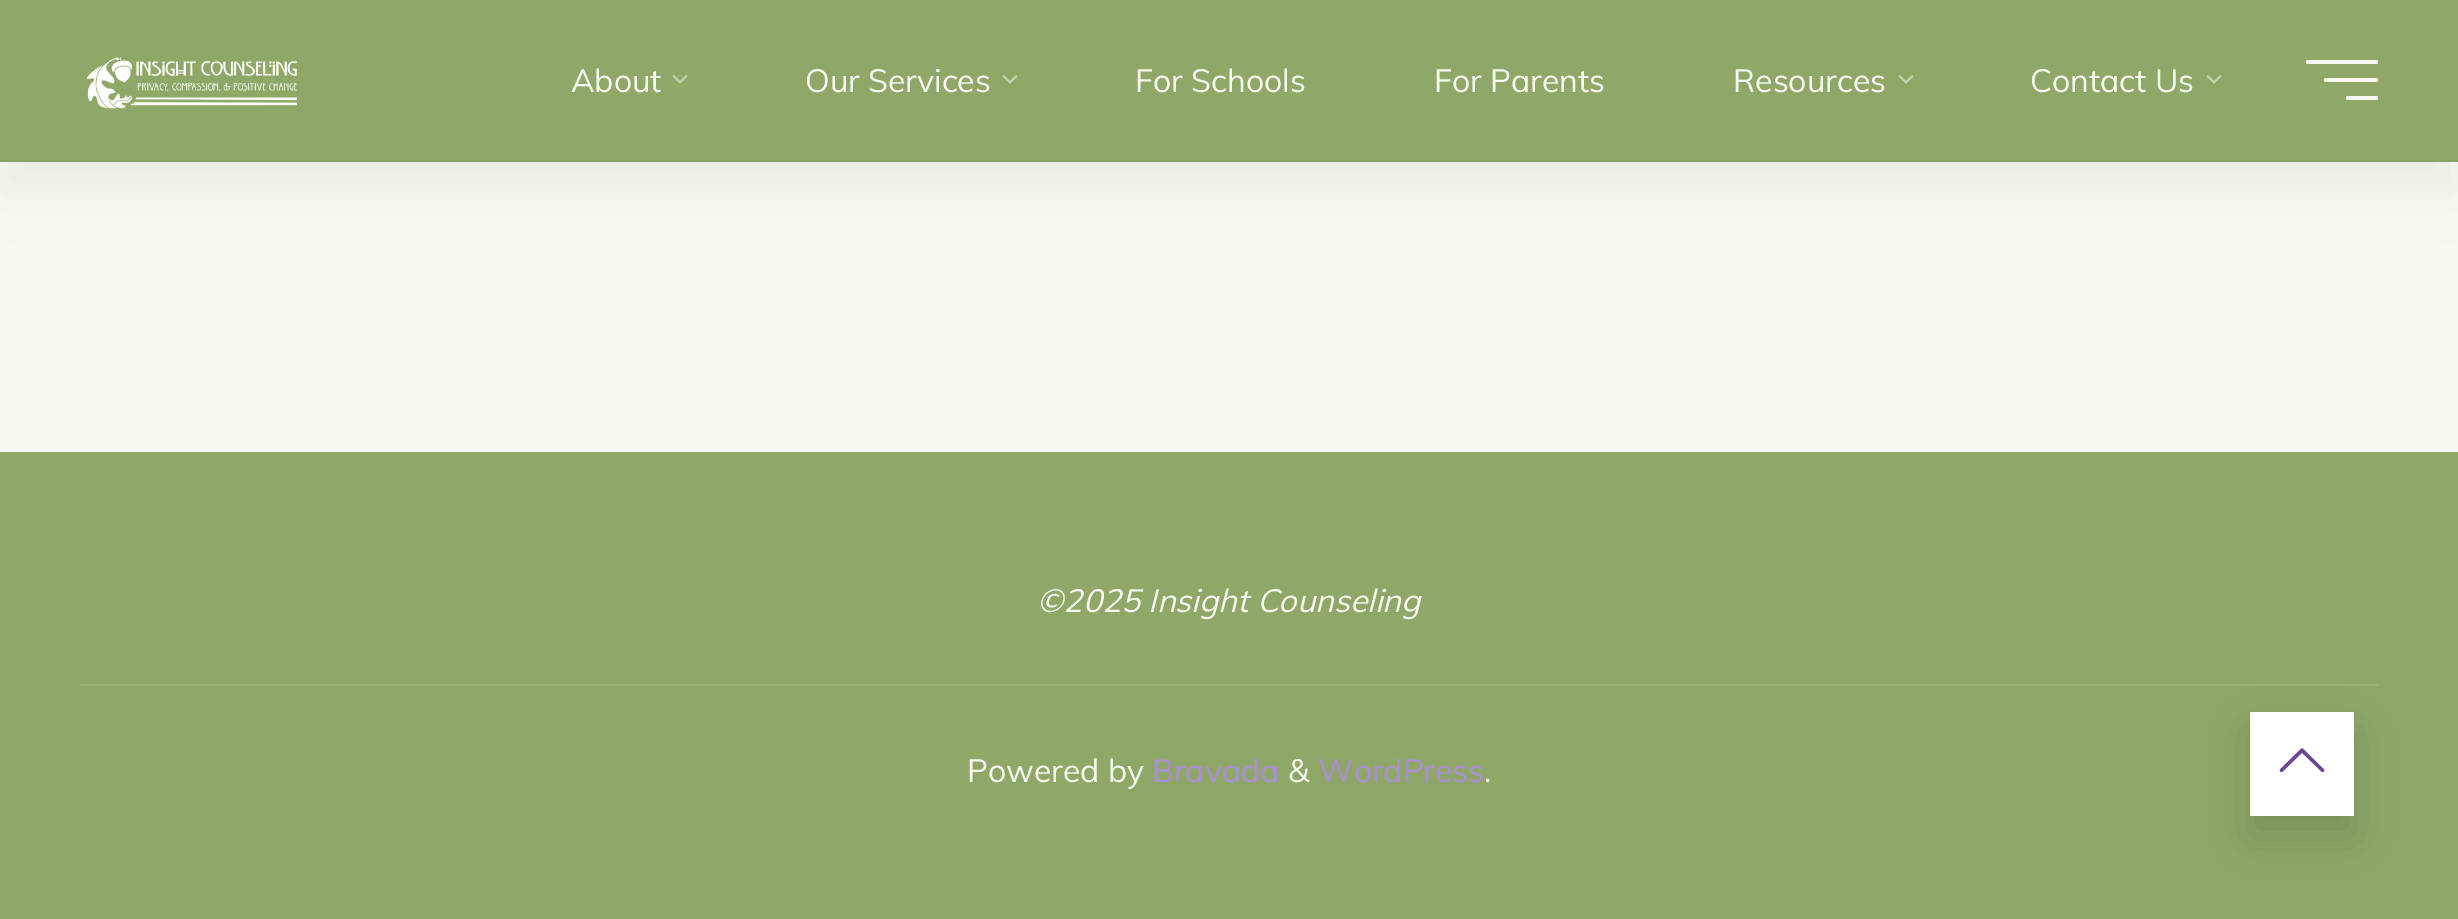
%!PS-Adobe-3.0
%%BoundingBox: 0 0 2458 919
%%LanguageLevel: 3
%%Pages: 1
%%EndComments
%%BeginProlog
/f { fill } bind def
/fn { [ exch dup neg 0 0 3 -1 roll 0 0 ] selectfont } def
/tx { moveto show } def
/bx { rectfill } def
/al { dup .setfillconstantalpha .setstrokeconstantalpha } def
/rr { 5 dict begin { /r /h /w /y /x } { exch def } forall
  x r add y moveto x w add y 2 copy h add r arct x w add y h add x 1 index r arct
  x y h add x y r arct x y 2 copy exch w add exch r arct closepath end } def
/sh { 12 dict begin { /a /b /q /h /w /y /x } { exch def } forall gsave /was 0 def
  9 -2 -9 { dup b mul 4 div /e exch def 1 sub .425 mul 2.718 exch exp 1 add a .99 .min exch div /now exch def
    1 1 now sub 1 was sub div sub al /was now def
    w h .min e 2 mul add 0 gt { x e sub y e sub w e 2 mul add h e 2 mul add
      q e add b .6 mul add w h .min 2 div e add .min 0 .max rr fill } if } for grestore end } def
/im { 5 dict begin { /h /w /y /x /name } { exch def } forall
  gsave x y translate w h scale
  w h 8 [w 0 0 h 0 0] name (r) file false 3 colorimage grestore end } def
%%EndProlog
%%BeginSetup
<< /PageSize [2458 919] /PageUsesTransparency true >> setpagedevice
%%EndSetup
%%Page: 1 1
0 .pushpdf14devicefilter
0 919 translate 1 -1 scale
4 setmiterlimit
0.973 0.976 0.941 setrgbcolor
0 0 2458 919 bx
0 setgray
0 30 2458 162 0 30 0.05 sh
0.561 0.659 0.408 setrgbcolor
0 0 2458 160 bx
0.533 0.627 0.388 setrgbcolor
0 160 2458 2 bx
(image0.raw) 87 57 211 52 im
/Muli-Regular 32 fn
0.973 0.976 0.941 setrgbcolor
(About) 571 92 tx
(image1.raw) 672 75 16 9 im
(Our Services) 805 92 tx
(image1.raw) 1002 75 16 9 im
(For Schools) 1135 92 tx
(For Parents) 1434 92 tx
(Resources) 1733 92 tx
(image1.raw) 1898 75 16 9 im
(Contact Us) 2030 92 tx
(image1.raw) 2206 75 16 9 im
2306 60 72 4 2 rr f
2324 78 54 4 2 rr f
2346 96 32 4 2 rr f
0.561 0.659 0.408 setrgbcolor
0 452 2458 467 bx
/Muli-Italic 32 fn
0.973 0.976 0.941 setrgbcolor
(©2025 Insight Counseling) 1037 612 tx
0.604 0.694 0.467 setrgbcolor
80 684 2298 2 bx
/Muli-Regular 32 fn
0.973 0.976 0.941 setrgbcolor
(Powered by) 967 782 tx
0.667 0.557 0.839 setrgbcolor
(Bravada) 1152 782 tx
0.973 0.976 0.941 setrgbcolor
(&) 1288 782 tx
0.667 0.557 0.839 setrgbcolor
(WordPress) 1318 782 tx
0.973 0.976 0.941 setrgbcolor
(.) 1484 782 tx
0 setgray
2250 732 104 104 0 20 0.15 sh
1 setgray
2250 712 104 104 bx
(image2.raw) 2279 748 46 25 im
.poppdf14devicefilter showpage
%%EOF
